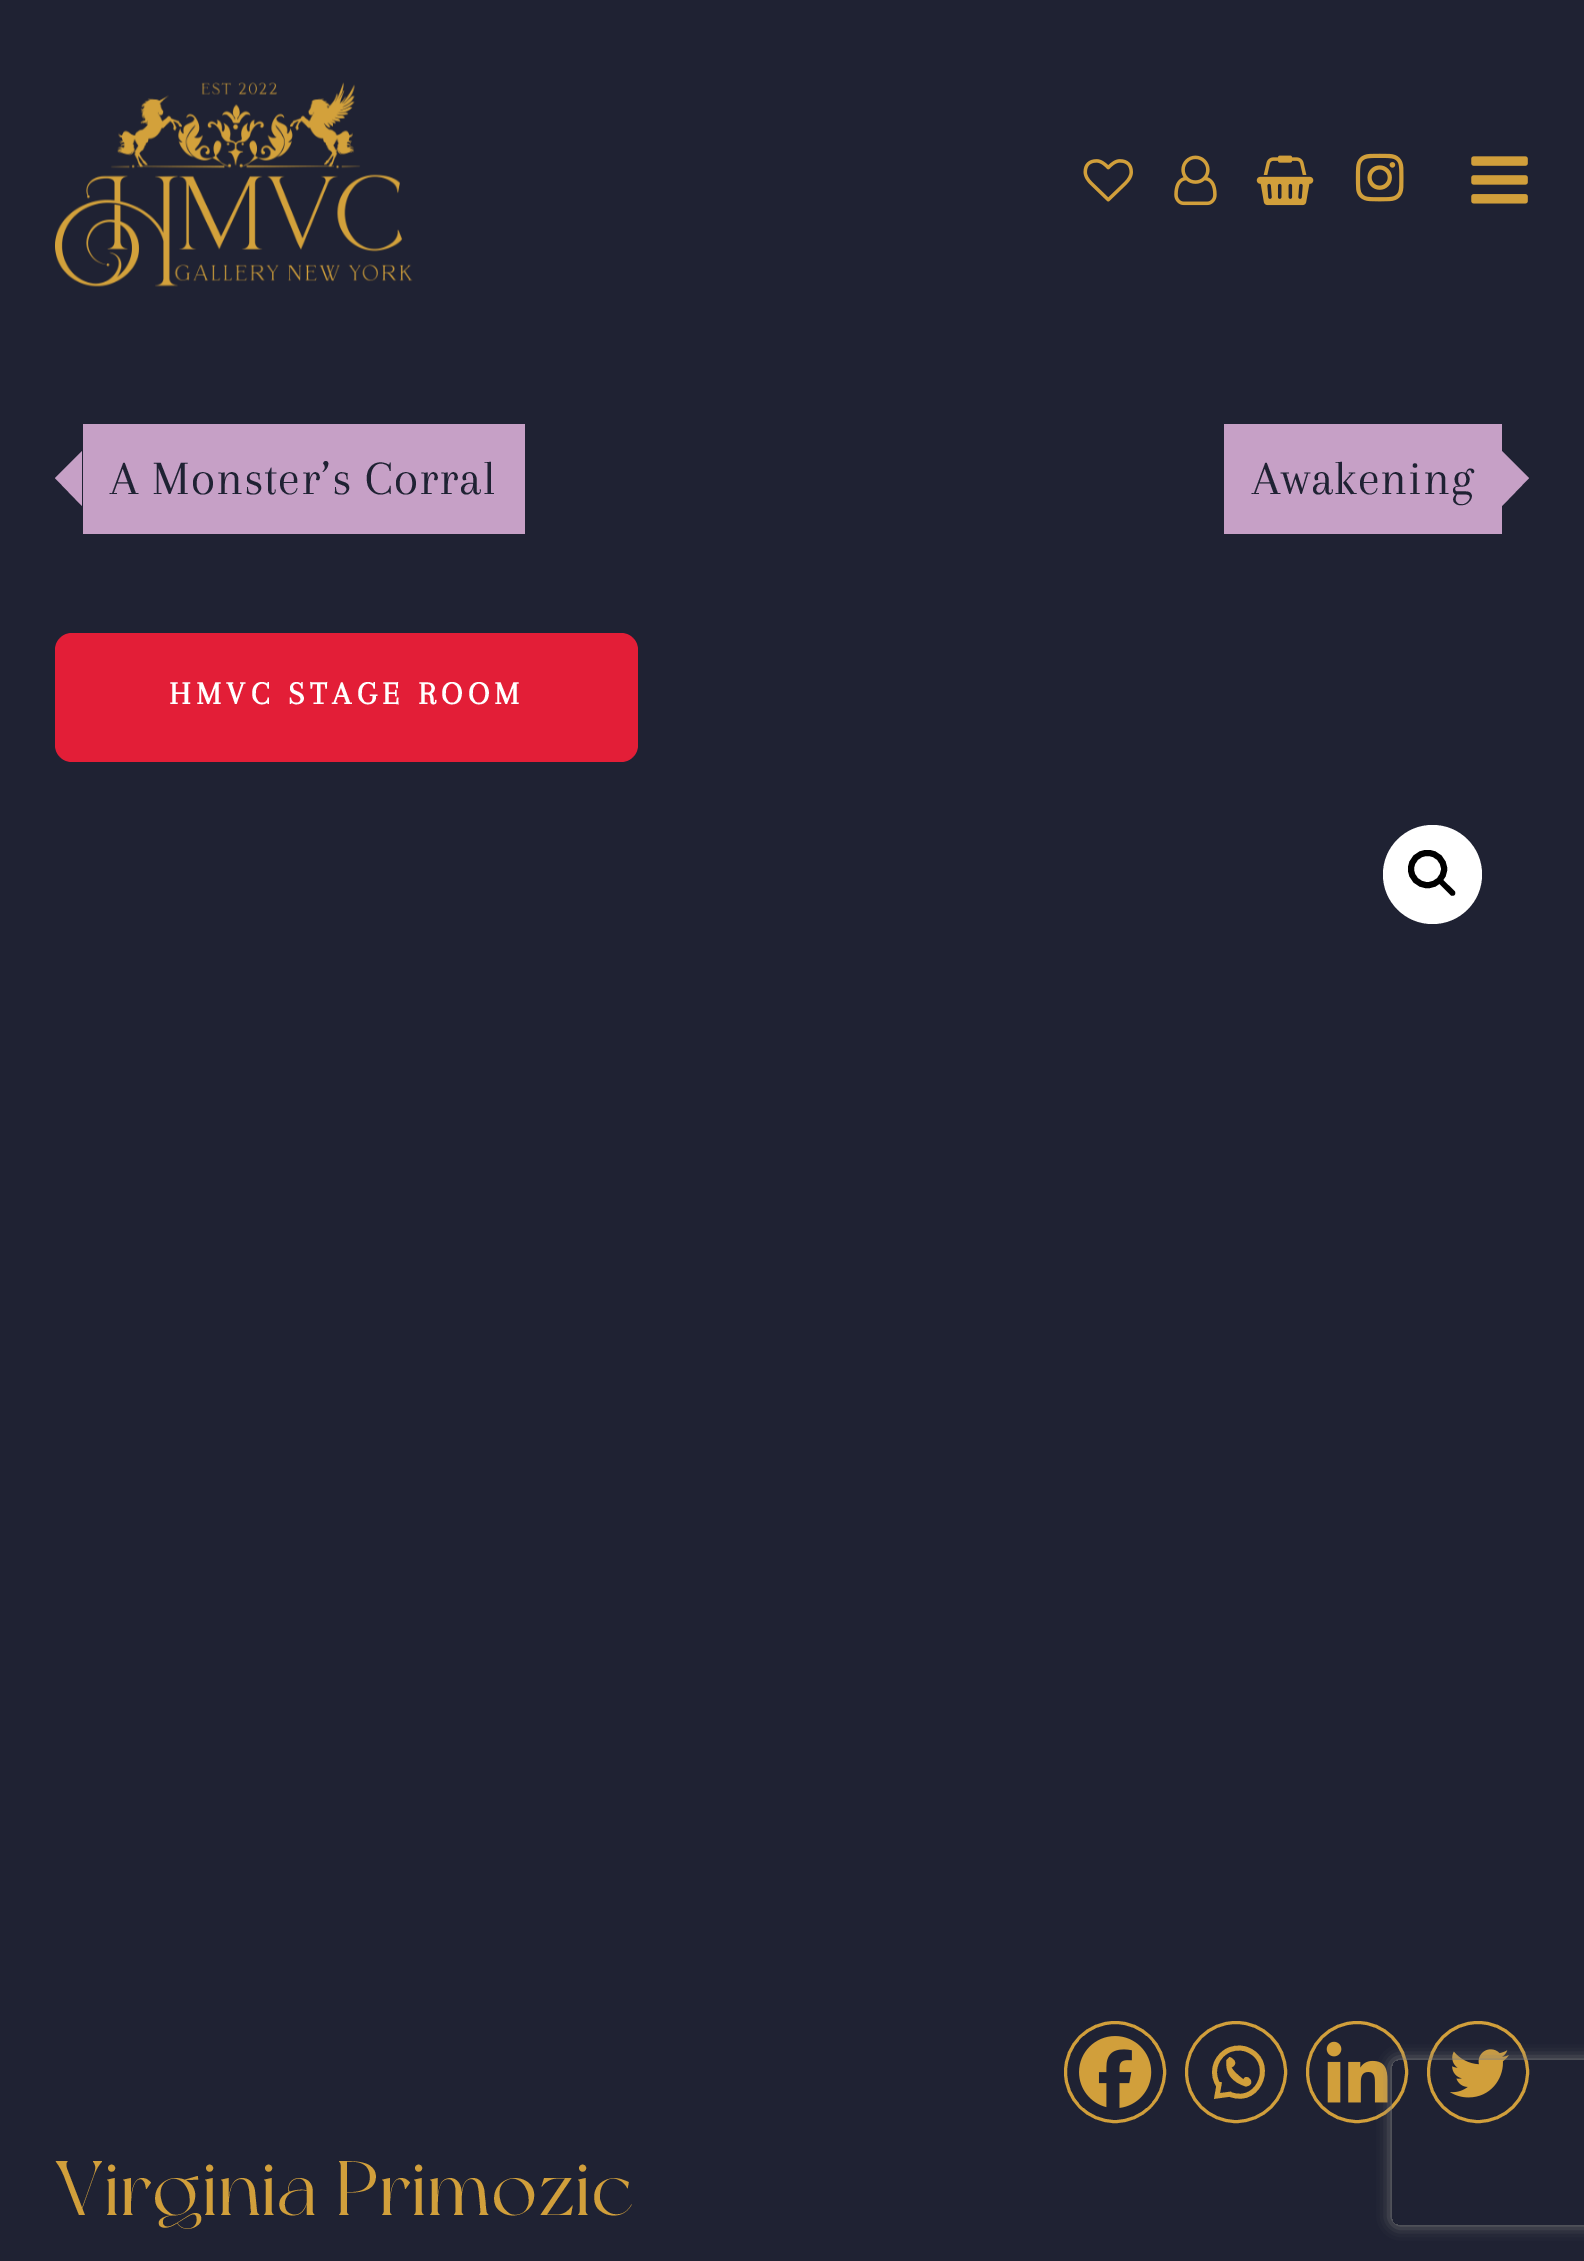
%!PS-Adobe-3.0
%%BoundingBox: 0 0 1584 2261
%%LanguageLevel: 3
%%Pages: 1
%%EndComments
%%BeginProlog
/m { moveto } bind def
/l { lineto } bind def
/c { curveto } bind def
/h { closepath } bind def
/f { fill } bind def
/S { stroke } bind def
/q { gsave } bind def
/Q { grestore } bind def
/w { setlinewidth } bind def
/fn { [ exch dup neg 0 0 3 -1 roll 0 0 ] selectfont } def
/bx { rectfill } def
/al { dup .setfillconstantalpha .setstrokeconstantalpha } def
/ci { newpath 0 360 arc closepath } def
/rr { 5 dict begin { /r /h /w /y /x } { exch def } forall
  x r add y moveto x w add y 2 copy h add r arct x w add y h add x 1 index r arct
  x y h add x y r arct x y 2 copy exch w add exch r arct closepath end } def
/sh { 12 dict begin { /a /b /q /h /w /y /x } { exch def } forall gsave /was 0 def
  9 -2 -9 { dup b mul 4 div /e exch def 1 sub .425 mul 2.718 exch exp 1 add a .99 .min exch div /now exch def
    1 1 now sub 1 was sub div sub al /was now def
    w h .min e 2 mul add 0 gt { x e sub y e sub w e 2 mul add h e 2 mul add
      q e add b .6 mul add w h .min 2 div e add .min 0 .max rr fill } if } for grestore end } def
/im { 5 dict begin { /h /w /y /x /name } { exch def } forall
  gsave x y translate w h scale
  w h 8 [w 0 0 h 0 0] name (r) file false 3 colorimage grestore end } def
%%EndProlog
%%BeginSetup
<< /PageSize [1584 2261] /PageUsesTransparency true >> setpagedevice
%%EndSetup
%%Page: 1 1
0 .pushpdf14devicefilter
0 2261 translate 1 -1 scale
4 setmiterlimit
0.122 0.133 0.2 setrgbcolor
0 0 1584 2261 bx
(image0.raw) 55 82 358 205 im
(image1.raw) 1083 159 50 43 im
(image2.raw) 1174 155 43 51 im
(image3.raw) 1256 155 58 51 im
(image4.raw) 1355 153 49 49 im
(image5.raw) 1471 156 57 48 im
0.776 0.627 0.776 setrgbcolor
83 424 442 110 bx
82 451 m 82 506 l 55 478 l h f
/Arapey-Regular 49.5 fn
0.122 0.133 0.2 setrgbcolor
110 494 m 0.9 0 (A Monster’s Corral) ashow
0.776 0.627 0.776 setrgbcolor
1224 424 278 110 bx
0.122 0.133 0.2 setrgbcolor
1252 494 m 0.9 0 (Awakening) ashow
0.776 0.627 0.776 setrgbcolor
1502 506 m 1502 451 l 1529 478 l h f
0.89 0.118 0.216 setrgbcolor
55 633 583 129 17 rr f
/Arapey-Bold 33 fn
1 setgray
169 704 m 5.5 0 (HMVC STAGE ROOM) ashow
1432.5 874.5 49.5 ci f
0 setgray
6 w
1411 853 33 32 16 rr S
1438.5 879.5 m 1440 878 1441.5 878 1442.5 879.5 c 1454.5 891 l 1455.5 892 1455.5 894 1454.5 895 c 1453 896 1451.5 896 1450.5 895 c 1438.5 883 l 1437.5 882 1437.5 880.5 1438.5 879.5 c h f
0.82 0.624 0.231 setrgbcolor
3 w
1115 2072 49.5 ci S
(image6.raw) 1079 2036 73 72 im
1236 2072 49.5 ci S
4.8 w
1230.5 2094.5 m 1261 2106 1276.5 2058.5 1245.5 2049 c 1239 2047 1231 2048 1225.5 2052 c 1214 2059.5 1211 2075 1219 2086 c 1219.5 2082 m 1217 2096 l 1231.5 2094 l S
1226.5 2060 m 1225 2073 1231.5 2082 1246 2086.5 c 1258 2084 1246 2072 1243.5 2079.5 c 1237 2074.5 1233 2070.5 1231.5 2067.5 c 1241 2062.5 1229 2055.5 1229 2057.5 c f
3 w
1357 2072 49.5 ci S
(image7.raw) 1326 2041 62 62 im
1478 2072 49.5 ci S
(image8.raw) 1450 2049 59 49 im
/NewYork-Regular 77 fn
55 2215 m 0.9 0 (Virginia Primozic) ashow
q
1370 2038 m 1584 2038 l 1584 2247 l 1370 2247 l h 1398 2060 m 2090 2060 l 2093.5 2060 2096 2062.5 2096 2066 c 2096 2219 l 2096 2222.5 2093.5 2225 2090 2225 c 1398 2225 l 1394.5 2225 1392 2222.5 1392 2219 c 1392 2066 l 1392 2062.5 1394.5 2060 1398 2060 c h eoclip newpath
0.502 setgray
1392 2060 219 165 6 7 1 sh
Q
.poppdf14devicefilter showpage
%%EOF
